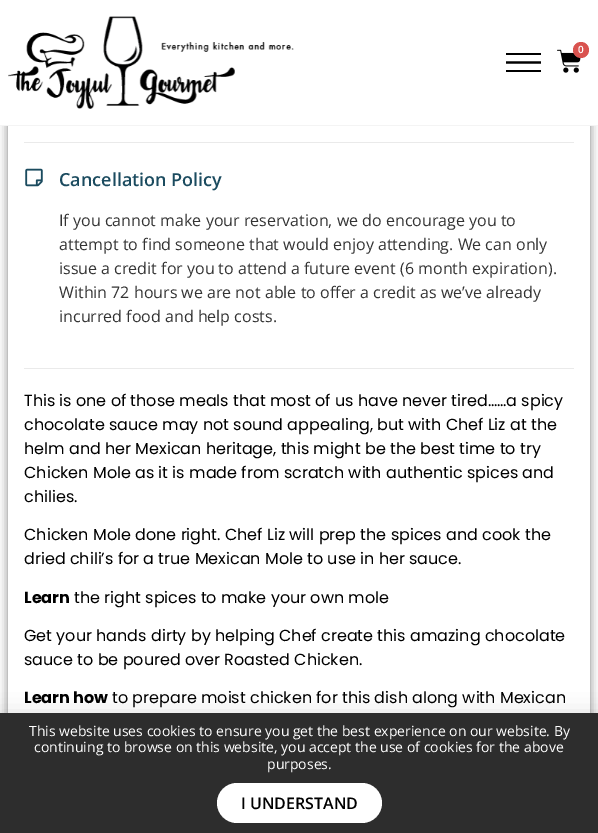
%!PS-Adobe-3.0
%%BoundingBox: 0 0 598 833
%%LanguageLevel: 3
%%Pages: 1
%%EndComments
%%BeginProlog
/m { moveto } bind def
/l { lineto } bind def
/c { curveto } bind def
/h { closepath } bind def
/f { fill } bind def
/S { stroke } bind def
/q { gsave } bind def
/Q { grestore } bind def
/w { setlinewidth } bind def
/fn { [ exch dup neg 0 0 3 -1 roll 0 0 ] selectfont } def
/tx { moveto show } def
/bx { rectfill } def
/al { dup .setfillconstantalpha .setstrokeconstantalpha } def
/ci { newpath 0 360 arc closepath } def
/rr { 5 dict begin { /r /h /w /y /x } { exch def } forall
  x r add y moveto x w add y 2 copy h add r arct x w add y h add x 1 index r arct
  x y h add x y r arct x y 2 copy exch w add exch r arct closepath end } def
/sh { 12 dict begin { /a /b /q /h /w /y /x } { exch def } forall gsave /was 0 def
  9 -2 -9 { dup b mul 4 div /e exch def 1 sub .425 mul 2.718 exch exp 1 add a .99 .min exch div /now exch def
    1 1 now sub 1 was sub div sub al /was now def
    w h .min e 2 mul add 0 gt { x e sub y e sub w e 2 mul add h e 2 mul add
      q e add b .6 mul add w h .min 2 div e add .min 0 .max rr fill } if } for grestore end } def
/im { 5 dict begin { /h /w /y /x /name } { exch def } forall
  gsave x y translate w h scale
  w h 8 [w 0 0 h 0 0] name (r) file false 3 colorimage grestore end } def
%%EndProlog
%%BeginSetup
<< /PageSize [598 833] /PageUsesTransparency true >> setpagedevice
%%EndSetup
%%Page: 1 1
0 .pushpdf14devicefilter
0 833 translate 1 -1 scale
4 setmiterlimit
1 setgray
0 0 598 833 bx
q
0 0 m 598 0 l 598 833 l 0 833 l h 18 -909 m 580 -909 l 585.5 -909 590 -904.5 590 -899 c 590 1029 l 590 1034.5 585.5 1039 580 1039 c 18 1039 l 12.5 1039 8 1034.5 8 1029 c 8 -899 l 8 -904.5 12.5 -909 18 -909 c h eoclip newpath
0 setgray
8 -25 582 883 10 5 0.5 sh
Q
0 0 598 125 bx
0.957 setgray
0 125 598 1 bx
(image0.raw) 8 16 286 93 im
(image1.raw) 557 49 24 24 im
0.851 0.325 0.31 setrgbcolor
581 50 8 ci f
/OpenSans-SemiBold 10 fn
1 setgray
(0) 578 53 tx
0 setgray
506 53 35 2 bx
2.2 w
506 62.5 m 541 62.5 l S
506 70 35 2 bx
0.918 setgray
24 142 550 1 bx
(image2.raw) 25 168 18 19 im
/OpenSans-SemiBold 18 fn
0.106 0.294 0.373 setrgbcolor
(Cancellation Policy) 59 186 tx
/OpenSans-Regular 16 fn
0.2 setgray
(If you cannot make your reservation, we do encourage you to) 59 226 tx
(attempt to find someone that would enjoy attending. We can only) 59 250 tx
(issue a credit for you to attend a future event \(6 month expiration\).) 59 274 tx
(Within 72 hours we are not able to offer a credit as we’ve already) 59 298 tx
(incurred food and help costs.) 59 322 tx
0.918 setgray
24 368 550 1 bx
/Poppins-Regular 16 fn
0 setgray
(This is one of those meals that most of us have never tired……a spicy) 24 406 tx
(chocolate sauce may not sound appealing, but with Chef Liz at the) 24 430 tx
(helm and her Mexican heritage, this might be the best time to try) 24 454 tx
(Chicken Mole as it is made from scratch with authentic spices and) 24 478 tx
(chilies.) 24 502 tx
(Chicken Mole done right. Chef Liz will prep the spices and cook the) 24 540 tx
(dried chili’s for a true Mexican Mole to use in her sauce.) 24 564 tx
/Poppins-Bold 16 fn
(Learn) 24 603 tx
/Poppins-Regular 16 fn
(the right spices to make your own mole) 74 603 tx
(Get your hands dirty by helping Chef create this amazing chocolate) 24 641 tx
(sauce to be poured over Roasted Chicken.) 24 665 tx
/Poppins-Bold 16 fn
(Learn how) 24 703 tx
/Poppins-Regular 16 fn
(to prepare moist chicken for this dish along with Mexican) 112 703 tx
-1 718 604 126 0 11.5 0.2 sh
0.176 setgray
0 713 598 120 bx
/OpenSans-Regular 14 fn
1 setgray
(This website uses cookies to ensure you get the best experience on our website. By) 29 736 tx
(continuing to browse on this website, you accept the use of cookies for the above) 34 752 tx
(purposes.) 267 769 tx
217 783 165 40 20 rr f
/OpenSans-SemiBold 16 fn
0 setgray
(I UNDERSTAND) 241 809 tx
.poppdf14devicefilter showpage
%%EOF
